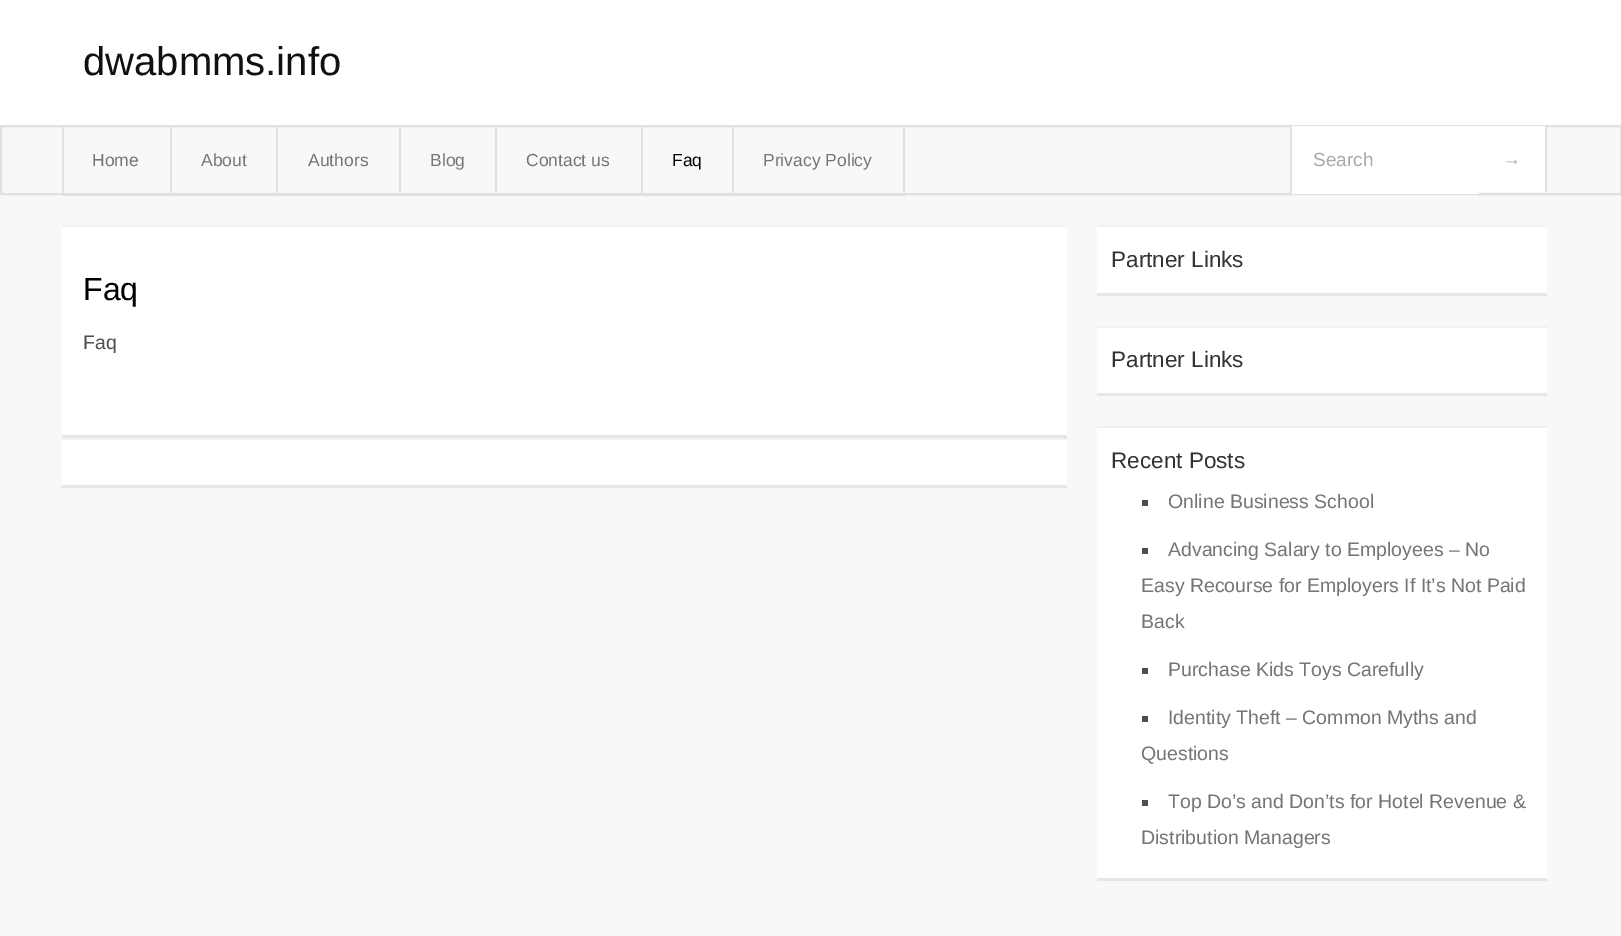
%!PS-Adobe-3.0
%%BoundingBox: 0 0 1621 936
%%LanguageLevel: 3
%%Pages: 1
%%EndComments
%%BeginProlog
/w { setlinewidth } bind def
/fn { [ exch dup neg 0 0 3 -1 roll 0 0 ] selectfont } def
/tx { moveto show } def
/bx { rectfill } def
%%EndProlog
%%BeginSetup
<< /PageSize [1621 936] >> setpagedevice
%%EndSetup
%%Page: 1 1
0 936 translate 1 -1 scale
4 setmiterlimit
0.973 setgray
0 0 1621 936 bx
1 setgray
0 0 1621 125 bx
/LiberationSans-Regular 40 fn
0.067 setgray
(dwabmms.info) 83 75 tx
0.882 setgray
2 w
1 126 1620 68 rectstroke
62 126 2 69 bx
170 126 2 69 bx
63 195 842 1 bx
/LiberationSans-Regular 17.5 fn
0.463 0.459 0.459 setrgbcolor
(Home) 92 166 tx
0.882 setgray
276 126 2 69 bx
0.463 0.459 0.459 setrgbcolor
(About) 201 166 tx
0.882 setgray
399 126 2 69 bx
0.463 0.459 0.459 setrgbcolor
(Authors) 308 166 tx
0.882 setgray
495 126 2 69 bx
0.463 0.459 0.459 setrgbcolor
(Blog) 430 166 tx
0.882 setgray
641 126 2 69 bx
0.463 0.459 0.459 setrgbcolor
(Contact us) 526 166 tx
0.882 setgray
732 126 2 69 bx
0 setgray
(Faq) 672 166 tx
0.882 setgray
903 126 2 69 bx
0.463 0.459 0.459 setrgbcolor
(Privacy Policy) 763 166 tx
1 setgray
1292 126 187 68 bx
0.882 setgray
1290 126 2 68 bx
/LiberationSans-Regular 19 fn
0.667 setgray
(Search) 1313 166 tx
1 setgray
1479 126 66 66 bx
0.882 setgray
1545 126 2 66 bx
0.667 setgray
(→) 1502 165 tx
1 setgray
62 227 1005 208 bx
0.945 setgray
62 225 1005 2 bx
0.902 setgray
62 435 1005 3 bx
/LiberationSans-Regular 32 fn
0 setgray
(Faq) 83 300 tx
/LiberationSans-Regular 19.5 fn
0.31 setgray
(Faq) 83 349 tx
1 setgray
62 440 1005 45 bx
0.945 setgray
62 438 1005 2 bx
0.902 setgray
62 485 1005 3 bx
1 setgray
1097 227 450 66 bx
0.945 setgray
1097 225 450 2 bx
0.902 setgray
1097 293 450 3 bx
/LiberationSans-Regular 22.5 fn
0.2 setgray
(Partner Links) 1111 267 tx
1 setgray
1097 328 450 65 bx
0.945 setgray
1097 326 450 2 bx
0.902 setgray
1097 393 450 3 bx
0.2 setgray
(Partner Links) 1111 367 tx
1 setgray
1097 428 450 450 bx
0.945 setgray
1097 426 450 2 bx
0.902 setgray
1097 878 450 3 bx
0.2 setgray
(Recent Posts) 1111 468 tx
0.306 setgray
1142 500 6 6 bx
/LiberationSans-Regular 19.5 fn
0.463 0.459 0.459 setrgbcolor
(Online Business School) 1168 508 tx
0.306 setgray
1142 548 6 6 bx
0.463 0.459 0.459 setrgbcolor
(Advancing Salary to Employees – No) 1168 556 tx
(Easy Recourse for Employers If It’s Not Paid) 1141 592 tx
(Back) 1141 628 tx
0.306 setgray
1142 668 6 6 bx
0.463 0.459 0.459 setrgbcolor
(Purchase Kids Toys Carefully) 1168 676 tx
0.306 setgray
1142 716 6 6 bx
0.463 0.459 0.459 setrgbcolor
(Identity Theft – Common Myths and) 1168 724 tx
(Questions) 1141 760 tx
0.306 setgray
1142 800 6 6 bx
0.463 0.459 0.459 setrgbcolor
(Top Do’s and Don’ts for Hotel Revenue &) 1168 808 tx
(Distribution Managers) 1141 844 tx
showpage
%%EOF
